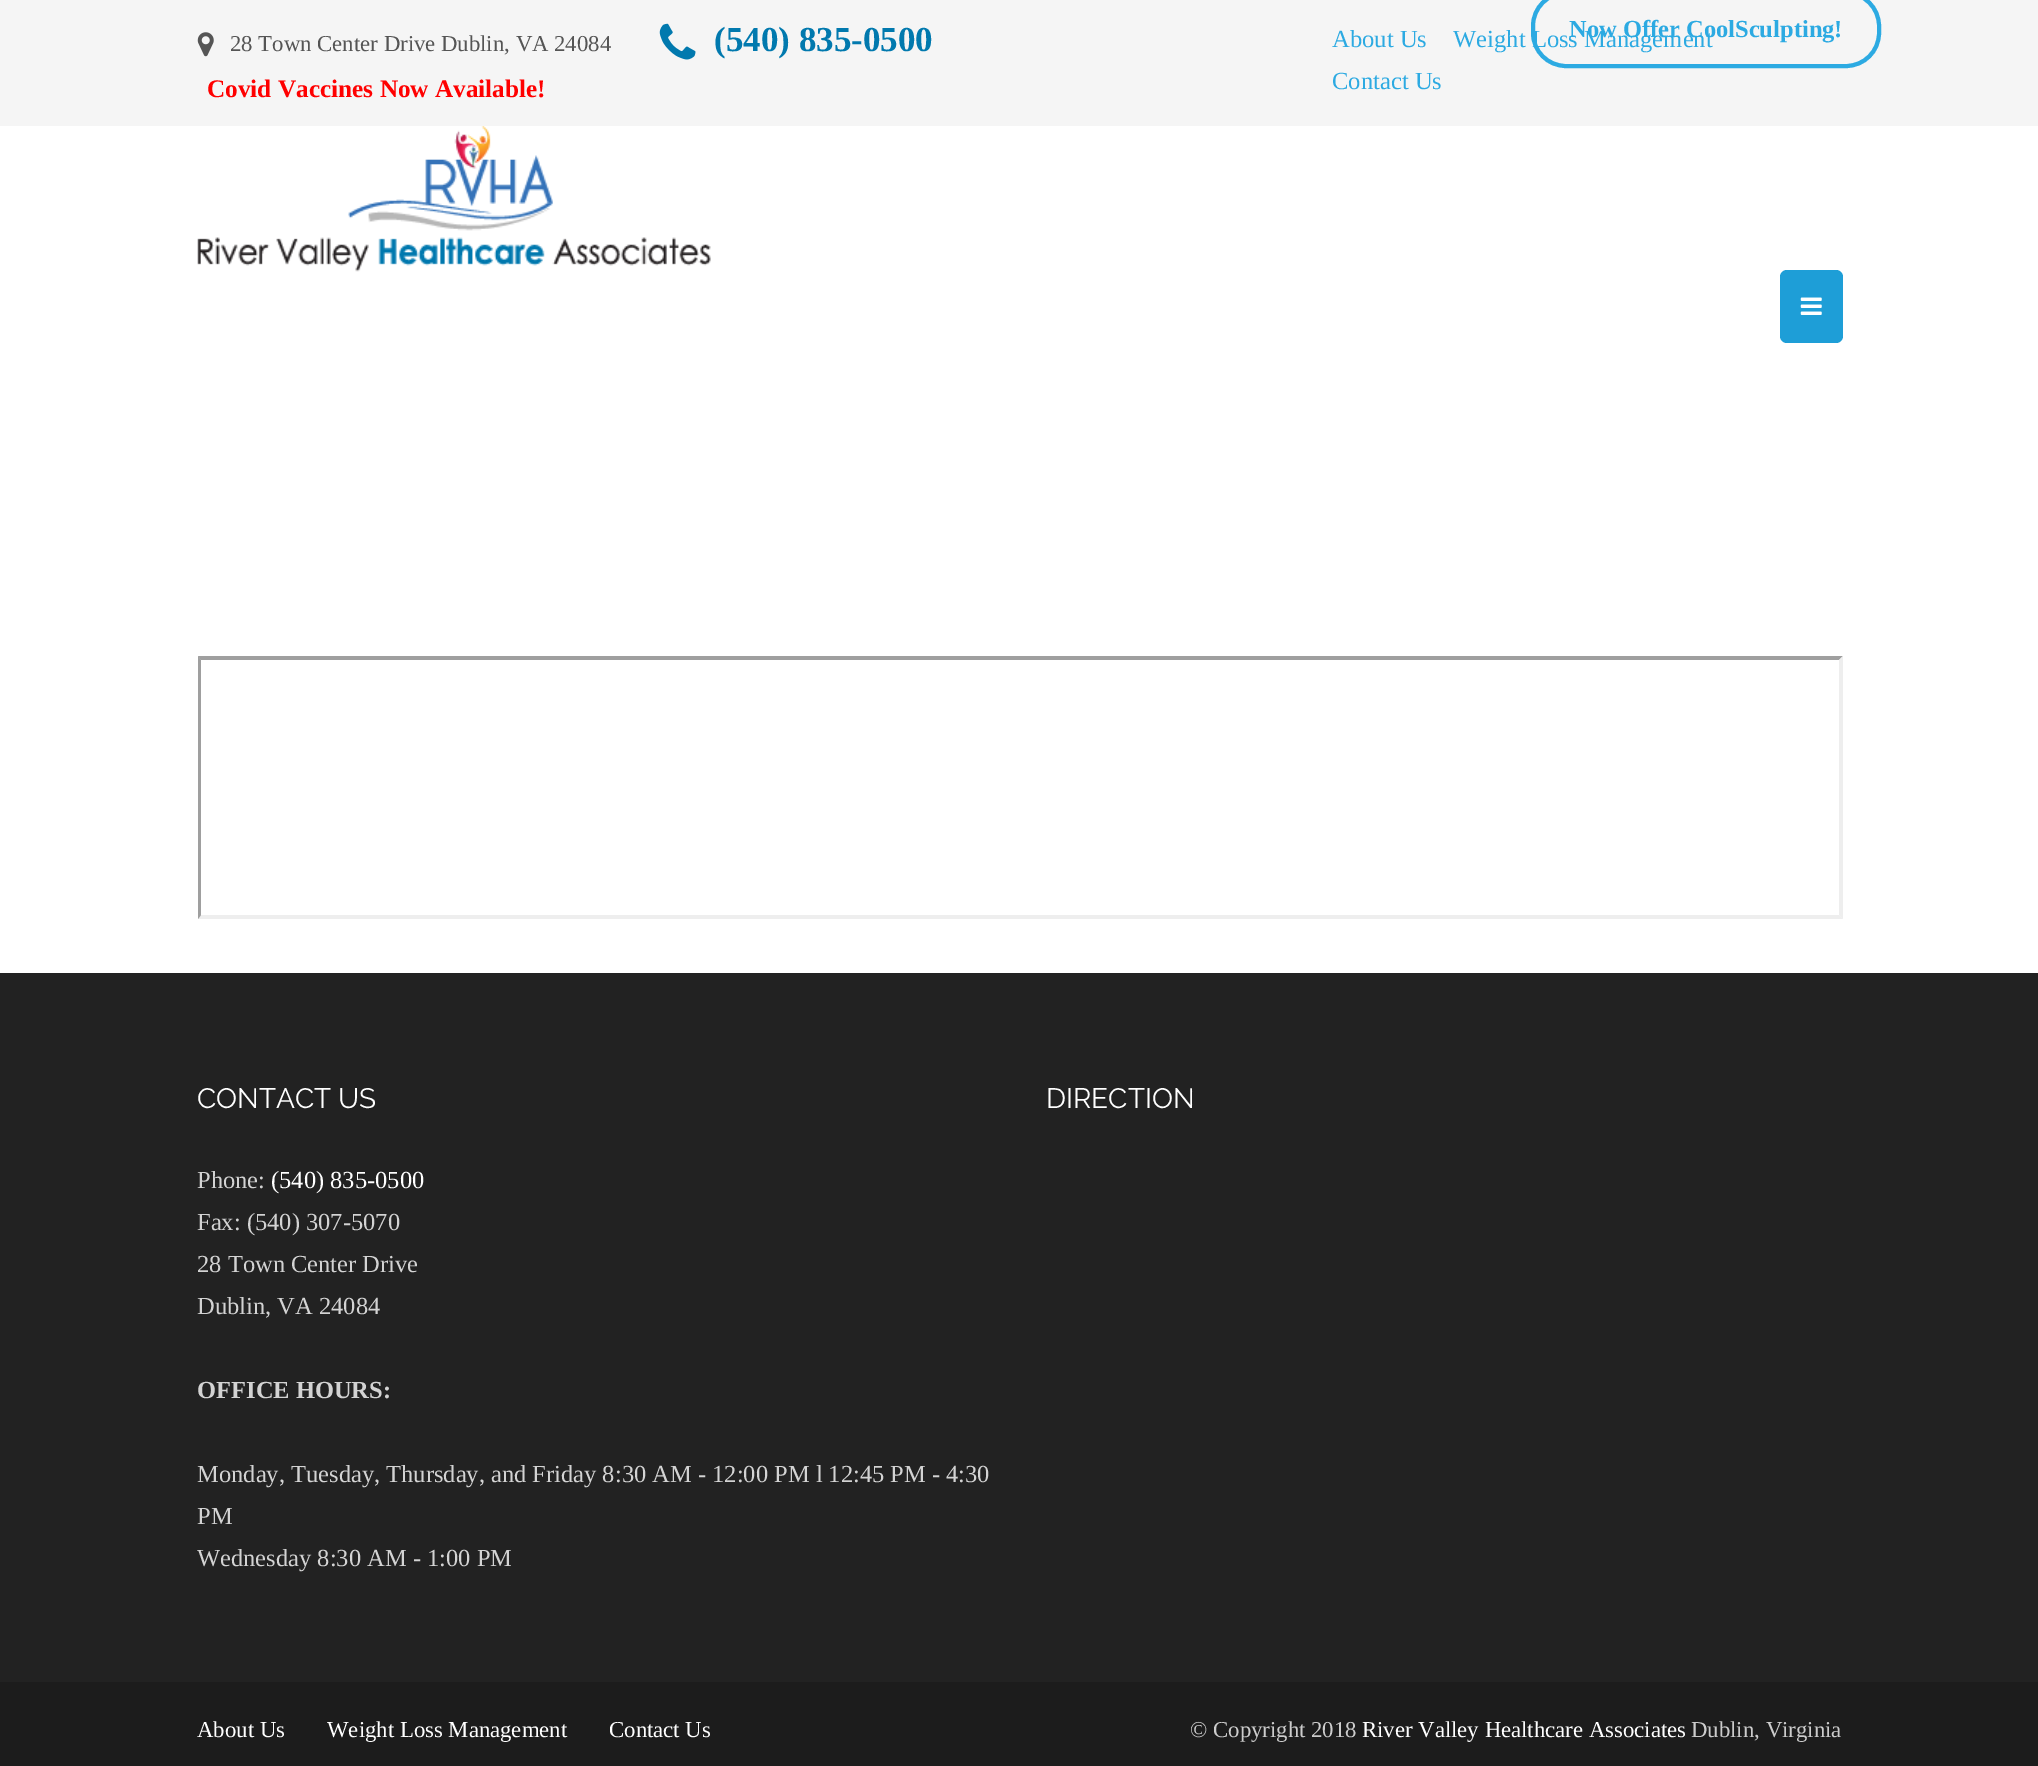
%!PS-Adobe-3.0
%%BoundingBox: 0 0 2038 1766
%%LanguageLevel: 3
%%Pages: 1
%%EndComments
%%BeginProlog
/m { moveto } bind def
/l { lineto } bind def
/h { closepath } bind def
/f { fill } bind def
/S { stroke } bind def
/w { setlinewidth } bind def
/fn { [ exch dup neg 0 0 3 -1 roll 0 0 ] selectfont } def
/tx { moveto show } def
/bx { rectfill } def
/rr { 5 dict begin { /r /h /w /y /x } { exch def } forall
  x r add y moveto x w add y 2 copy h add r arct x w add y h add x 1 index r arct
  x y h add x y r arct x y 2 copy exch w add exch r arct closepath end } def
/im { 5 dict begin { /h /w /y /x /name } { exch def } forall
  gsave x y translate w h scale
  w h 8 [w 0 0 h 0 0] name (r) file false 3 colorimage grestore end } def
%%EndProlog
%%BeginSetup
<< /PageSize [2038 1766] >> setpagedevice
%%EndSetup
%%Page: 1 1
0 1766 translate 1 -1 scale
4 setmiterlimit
1 setgray
0 0 2038 1766 bx
0.961 setgray
0 0 2038 126 bx
0.173 0.667 0.886 setrgbcolor
4 w
1533 -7 346 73 33 rr S
/LiberationSerif-Regular 24.6 fn
(Weight Loss Management) 1453 47 tx
/LiberationSerif-Bold 24.5 fn
(Now Offer CoolSculpting!) 1569 37 tx
(image0.raw) 197 126 514 146 im
0.118 0.62 0.843 setrgbcolor
1780 270 63 73 7 rr f
(image1.raw) 1800 297 22 18 im
(image2.raw) 197 32 17 25 im
/LiberationSerif-Regular 22.75 fn
0.333 setgray
(28 Town Center Drive Dublin, VA 24084) 230 51 tx
(image3.raw) 659 23 37 37 im
/LiberationSerif-Bold 35 fn
0.004 0.475 0.682 setrgbcolor
(\(540\) 835-0500) 714 51 tx
/LiberationSerif-Bold 25.25 fn
1 0 0 setrgbcolor
(Covid Vaccines Now Available!) 207 97 tx
/LiberationSerif-Regular 24.6 fn
0.173 0.667 0.886 setrgbcolor
(About Us) 1332 47 tx
(Contact Us) 1332 89 tx
0.624 setgray
198 656 m 1843 656 l 1839 660 l 201 660 l h f
0.933 setgray
1843 656 m 1843 919 l 1839 915 l 1839 660 l h f
1843 919 m 198 919 l 201 915 l 1839 915 l h f
0.624 setgray
198 919 m 198 656 l 201 660 l 201 915 l h f
0.133 setgray
0 973 2038 709 bx
/Raleway-Regular 28 fn
1 setgray
(CONTACT US) 197 1108 tx
/LiberationSerif-Regular 24.5 fn
0.827 setgray
(Phone:) 197 1188 tx
1 setgray
(\(540\) 835-0500) 271 1188 tx
0.827 setgray
(Fax: \(540\) 307-5070) 197 1230 tx
(28 Town Center Drive) 197 1272 tx
(Dublin, VA 24084) 197 1314 tx
/LiberationSerif-Bold 24.5 fn
(OFFICE HOURS:) 197 1398 tx
/LiberationSerif-Regular 24.5 fn
(Monday, Tuesday, Thursday, and Friday 8:30 AM - 12:00 PM l 12:45 PM - 4:30) 197 1482 tx
(PM) 197 1524 tx
(Wednesday 8:30 AM - 1:00 PM) 197 1566 tx
/Raleway-Regular 28 fn
1 setgray
(DIRECTION) 1046 1108 tx
0.11 setgray
0 1682 2038 84 bx
/LiberationSerif-Regular 22.75 fn
1 setgray
(About Us) 197 1737 tx
(Weight Loss Management) 327 1737 tx
(Contact Us) 609 1737 tx
0.8 setgray
(© Copyright 2018) 1190 1737 tx
1 setgray
(River Valley Healthcare Associates) 1362 1737 tx
0.8 setgray
(Dublin, Virginia) 1691 1737 tx
showpage
%%EOF
